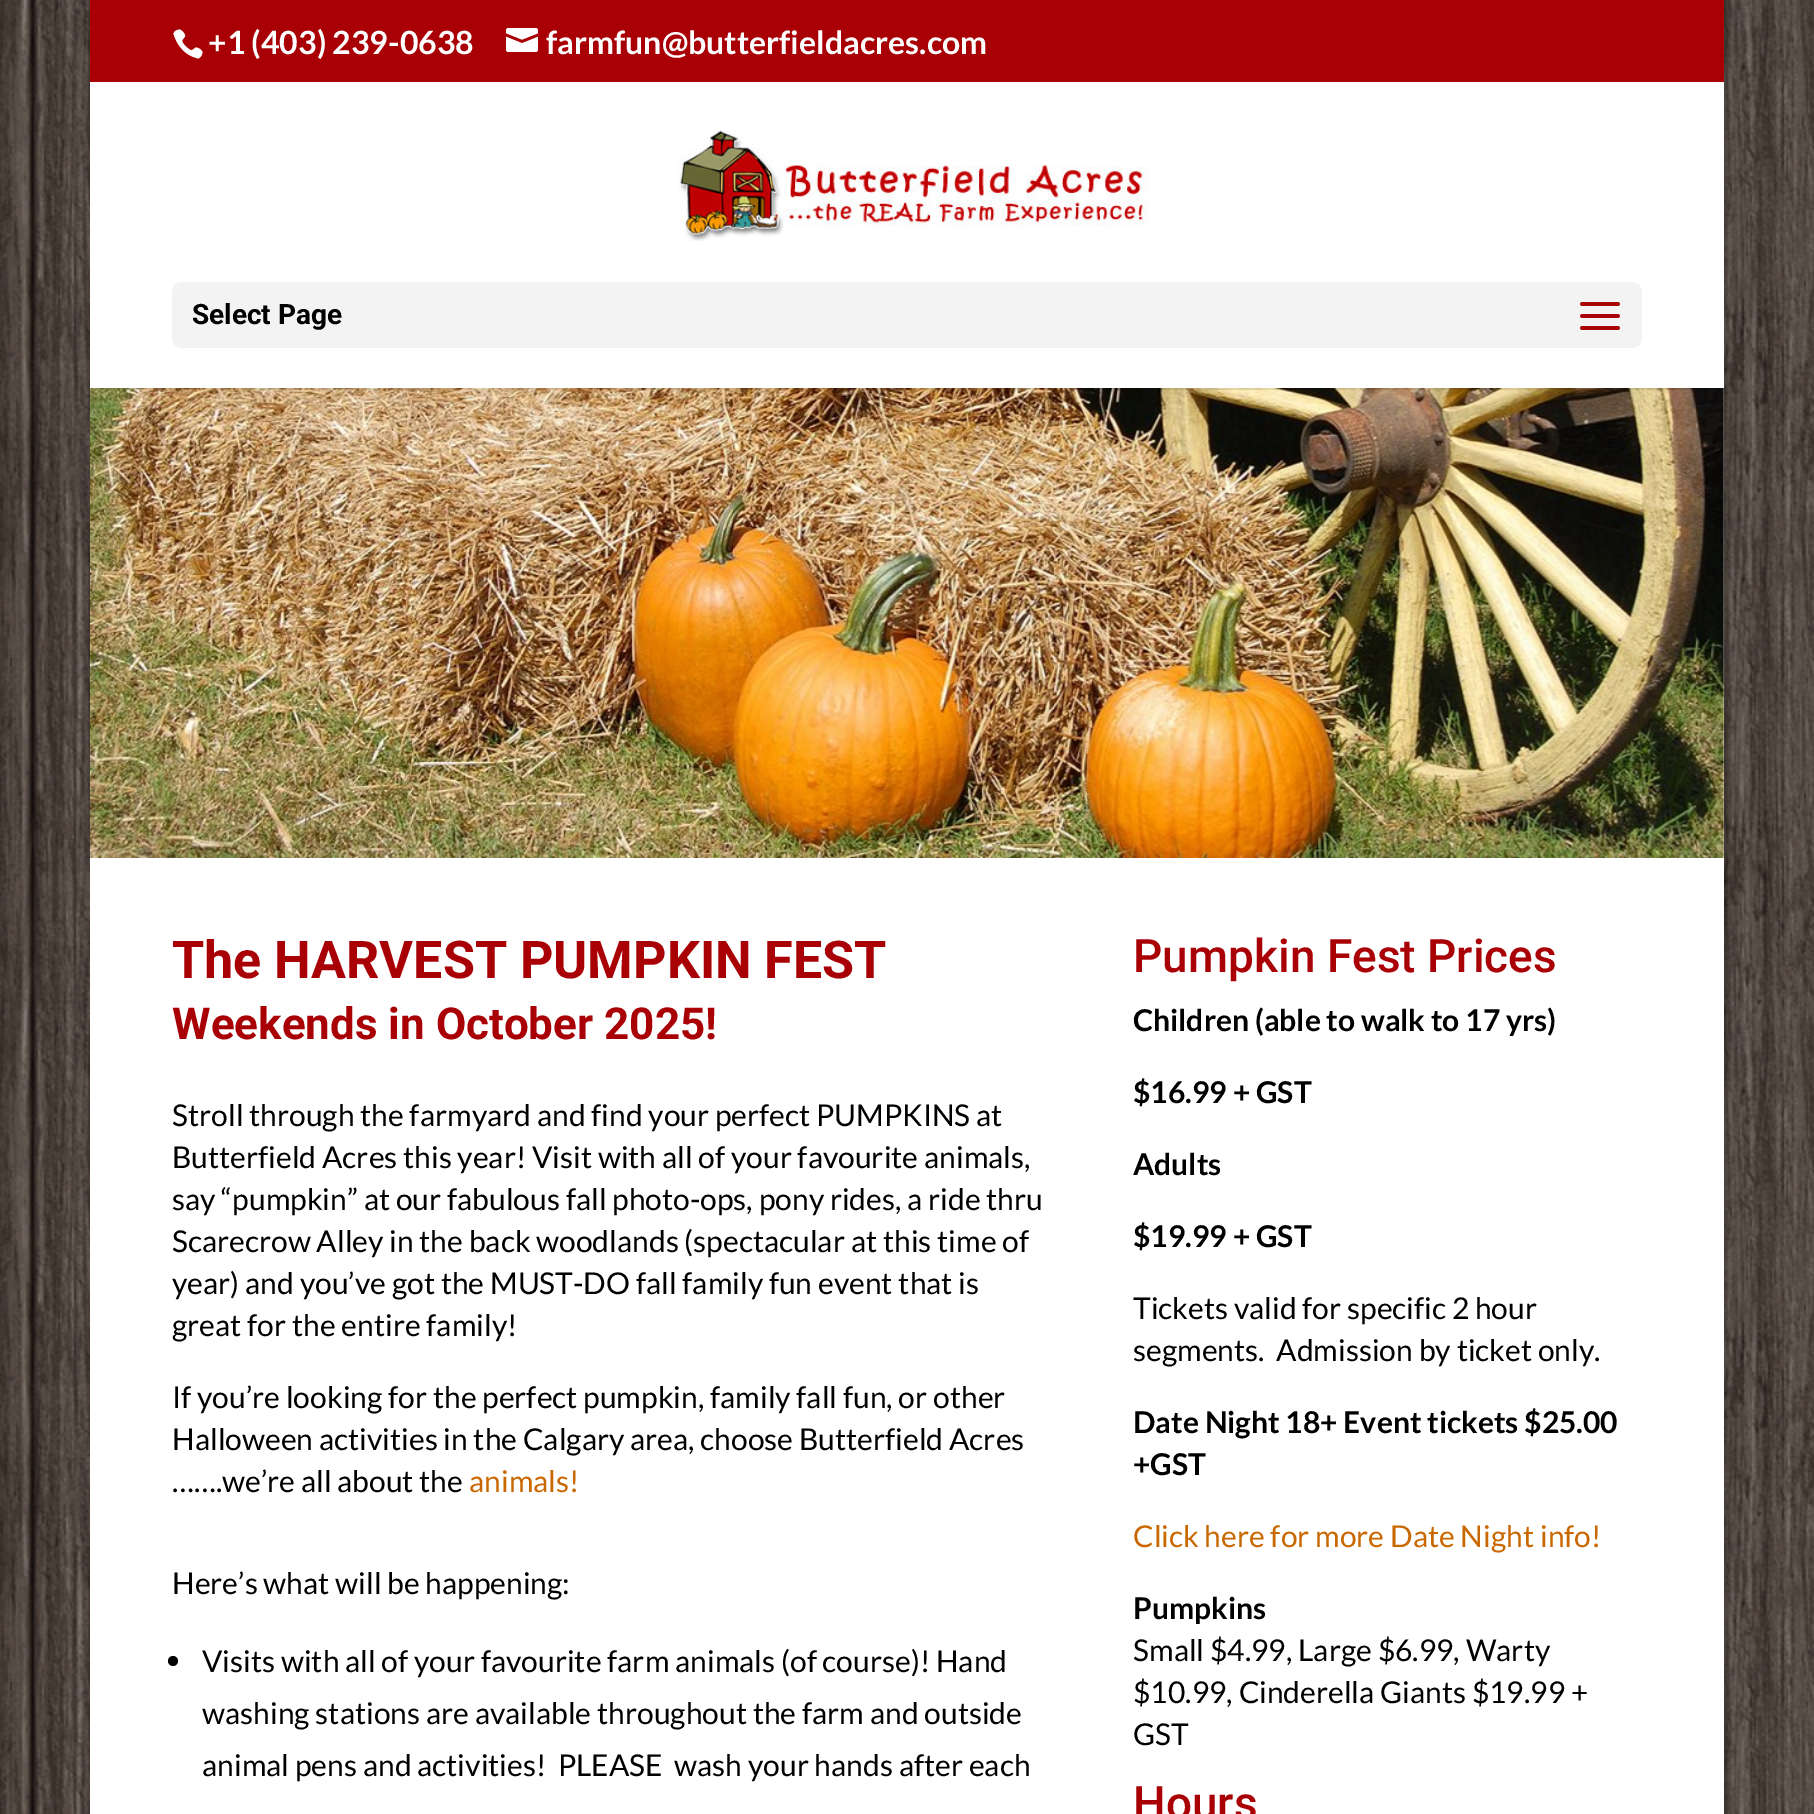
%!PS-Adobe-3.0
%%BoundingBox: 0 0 1814 1814
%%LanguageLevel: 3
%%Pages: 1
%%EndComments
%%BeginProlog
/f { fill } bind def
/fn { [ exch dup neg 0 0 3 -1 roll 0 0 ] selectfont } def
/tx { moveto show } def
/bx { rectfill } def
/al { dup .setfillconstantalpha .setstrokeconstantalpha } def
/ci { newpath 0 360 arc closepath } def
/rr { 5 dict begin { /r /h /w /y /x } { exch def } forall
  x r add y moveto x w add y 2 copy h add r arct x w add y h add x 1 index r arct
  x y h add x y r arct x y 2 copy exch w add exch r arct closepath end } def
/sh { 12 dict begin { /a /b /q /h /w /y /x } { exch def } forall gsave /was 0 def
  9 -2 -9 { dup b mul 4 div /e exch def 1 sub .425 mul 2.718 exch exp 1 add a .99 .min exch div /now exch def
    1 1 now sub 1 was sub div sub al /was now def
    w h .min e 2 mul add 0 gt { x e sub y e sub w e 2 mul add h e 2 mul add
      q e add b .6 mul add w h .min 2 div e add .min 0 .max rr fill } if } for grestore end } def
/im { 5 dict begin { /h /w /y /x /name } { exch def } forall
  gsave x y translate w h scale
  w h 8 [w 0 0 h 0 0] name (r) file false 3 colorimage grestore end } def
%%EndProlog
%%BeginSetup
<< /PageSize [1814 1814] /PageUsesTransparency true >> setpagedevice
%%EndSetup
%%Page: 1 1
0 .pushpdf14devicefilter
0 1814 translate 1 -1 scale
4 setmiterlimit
1 setgray
0 0 1814 1814 bx
(image0.raw) 0 0 1814 1814 im
0 setgray
90 0 1634 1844 0 10 0.2 sh
0.659 0 0.02 setrgbcolor
90 0 1634 82 bx
(image1.raw) 173 29 30 30 im
/Lato-Bold 32 fn
1 setgray
(+1 \(403\) 239-0638) 208 54 tx
(image2.raw) 506 28 32 24 im
(farmfun@butterfieldacres.com) 546 54 tx
(image5.raw) 90 388 1634 470 im
0.1 al
0 setgray
90 388 1634 2 bx
1 al
1 setgray
90 82 1634 306 bx
(image3.raw) 678 130 470 111 im
0.953 setgray
172 282 1470 66 10 rr f
/Roboto-Bold 28 fn
0 setgray
(Select Page) 192 324 tx
(image4.raw) 1580 302 40 28 im
1 setgray
90 858 1634 956 bx
/Roboto-Bold 52 fn
0.659 0 0.02 setrgbcolor
(The HARVEST PUMPKIN FEST) 172 978 tx
/Roboto-Bold 44 fn
(Weekends in October 2025!) 172 1039 tx
/Lato-Regular 30 fn
0 setgray
(Stroll through the farmyard and find your perfect PUMPKINS at) 172 1126 tx
(Butterfield Acres this year! Visit with all of your favourite animals,) 172 1168 tx
(say “pumpkin” at our fabulous fall photo-ops, pony rides, a ride thru) 172 1210 tx
(Scarecrow Alley in the back woodlands \(spectacular at this time of) 172 1252 tx
(year\) and you’ve got the MUST-DO fall family fun event that is) 172 1294 tx
(great for the entire family!) 172 1336 tx
(If you’re looking for the perfect pumpkin, family fall fun, or other) 172 1408 tx
(Halloween activities in the Calgary area, choose Butterfield Acres) 172 1450 tx
(…….we’re all about the) 172 1492 tx
0.788 0.408 0 setrgbcolor
(animals!) 469 1492 tx
0 setgray
(Here’s what will be happening:) 172 1594 tx
173 1661 5 ci f
(Visits with all of your favourite farm animals \(of course\)! Hand) 202 1672 tx
(washing stations are available throughout the farm and outside) 202 1724 tx
(animal pens and activities!  PLEASE  wash your hands after each) 202 1776 tx
/Roboto-Medium 46 fn
0.659 0 0.02 setrgbcolor
(Pumpkin Fest Prices) 1133 972 tx
/Lato-Bold 30 fn
0 setgray
(Children \(able to walk to 17 yrs\)) 1133 1031 tx
($16.99 + GST) 1133 1103 tx
(Adults) 1133 1175 tx
($19.99 + GST) 1133 1247 tx
/Lato-Regular 30 fn
(Tickets valid for specific 2 hour) 1133 1319 tx
(segments.  Admission by ticket only.) 1133 1361 tx
/Lato-Bold 30 fn
(Date Night 18+ Event tickets $25.00) 1133 1433 tx
(+GST) 1133 1475 tx
/Lato-Regular 30 fn
0.788 0.408 0 setrgbcolor
(Click here for more Date Night info!) 1133 1547 tx
/Lato-Bold 30 fn
0 setgray
(Pumpkins) 1133 1619 tx
/Lato-Regular 30 fn
(Small $4.99, Large $6.99, Warty) 1133 1661 tx
($10.99, Cinderella Giants $19.99 +) 1133 1703 tx
(GST) 1133 1745 tx
/Roboto-Medium 46 fn
0.659 0 0.02 setrgbcolor
(Hours) 1133 1819 tx
.poppdf14devicefilter showpage
%%EOF
